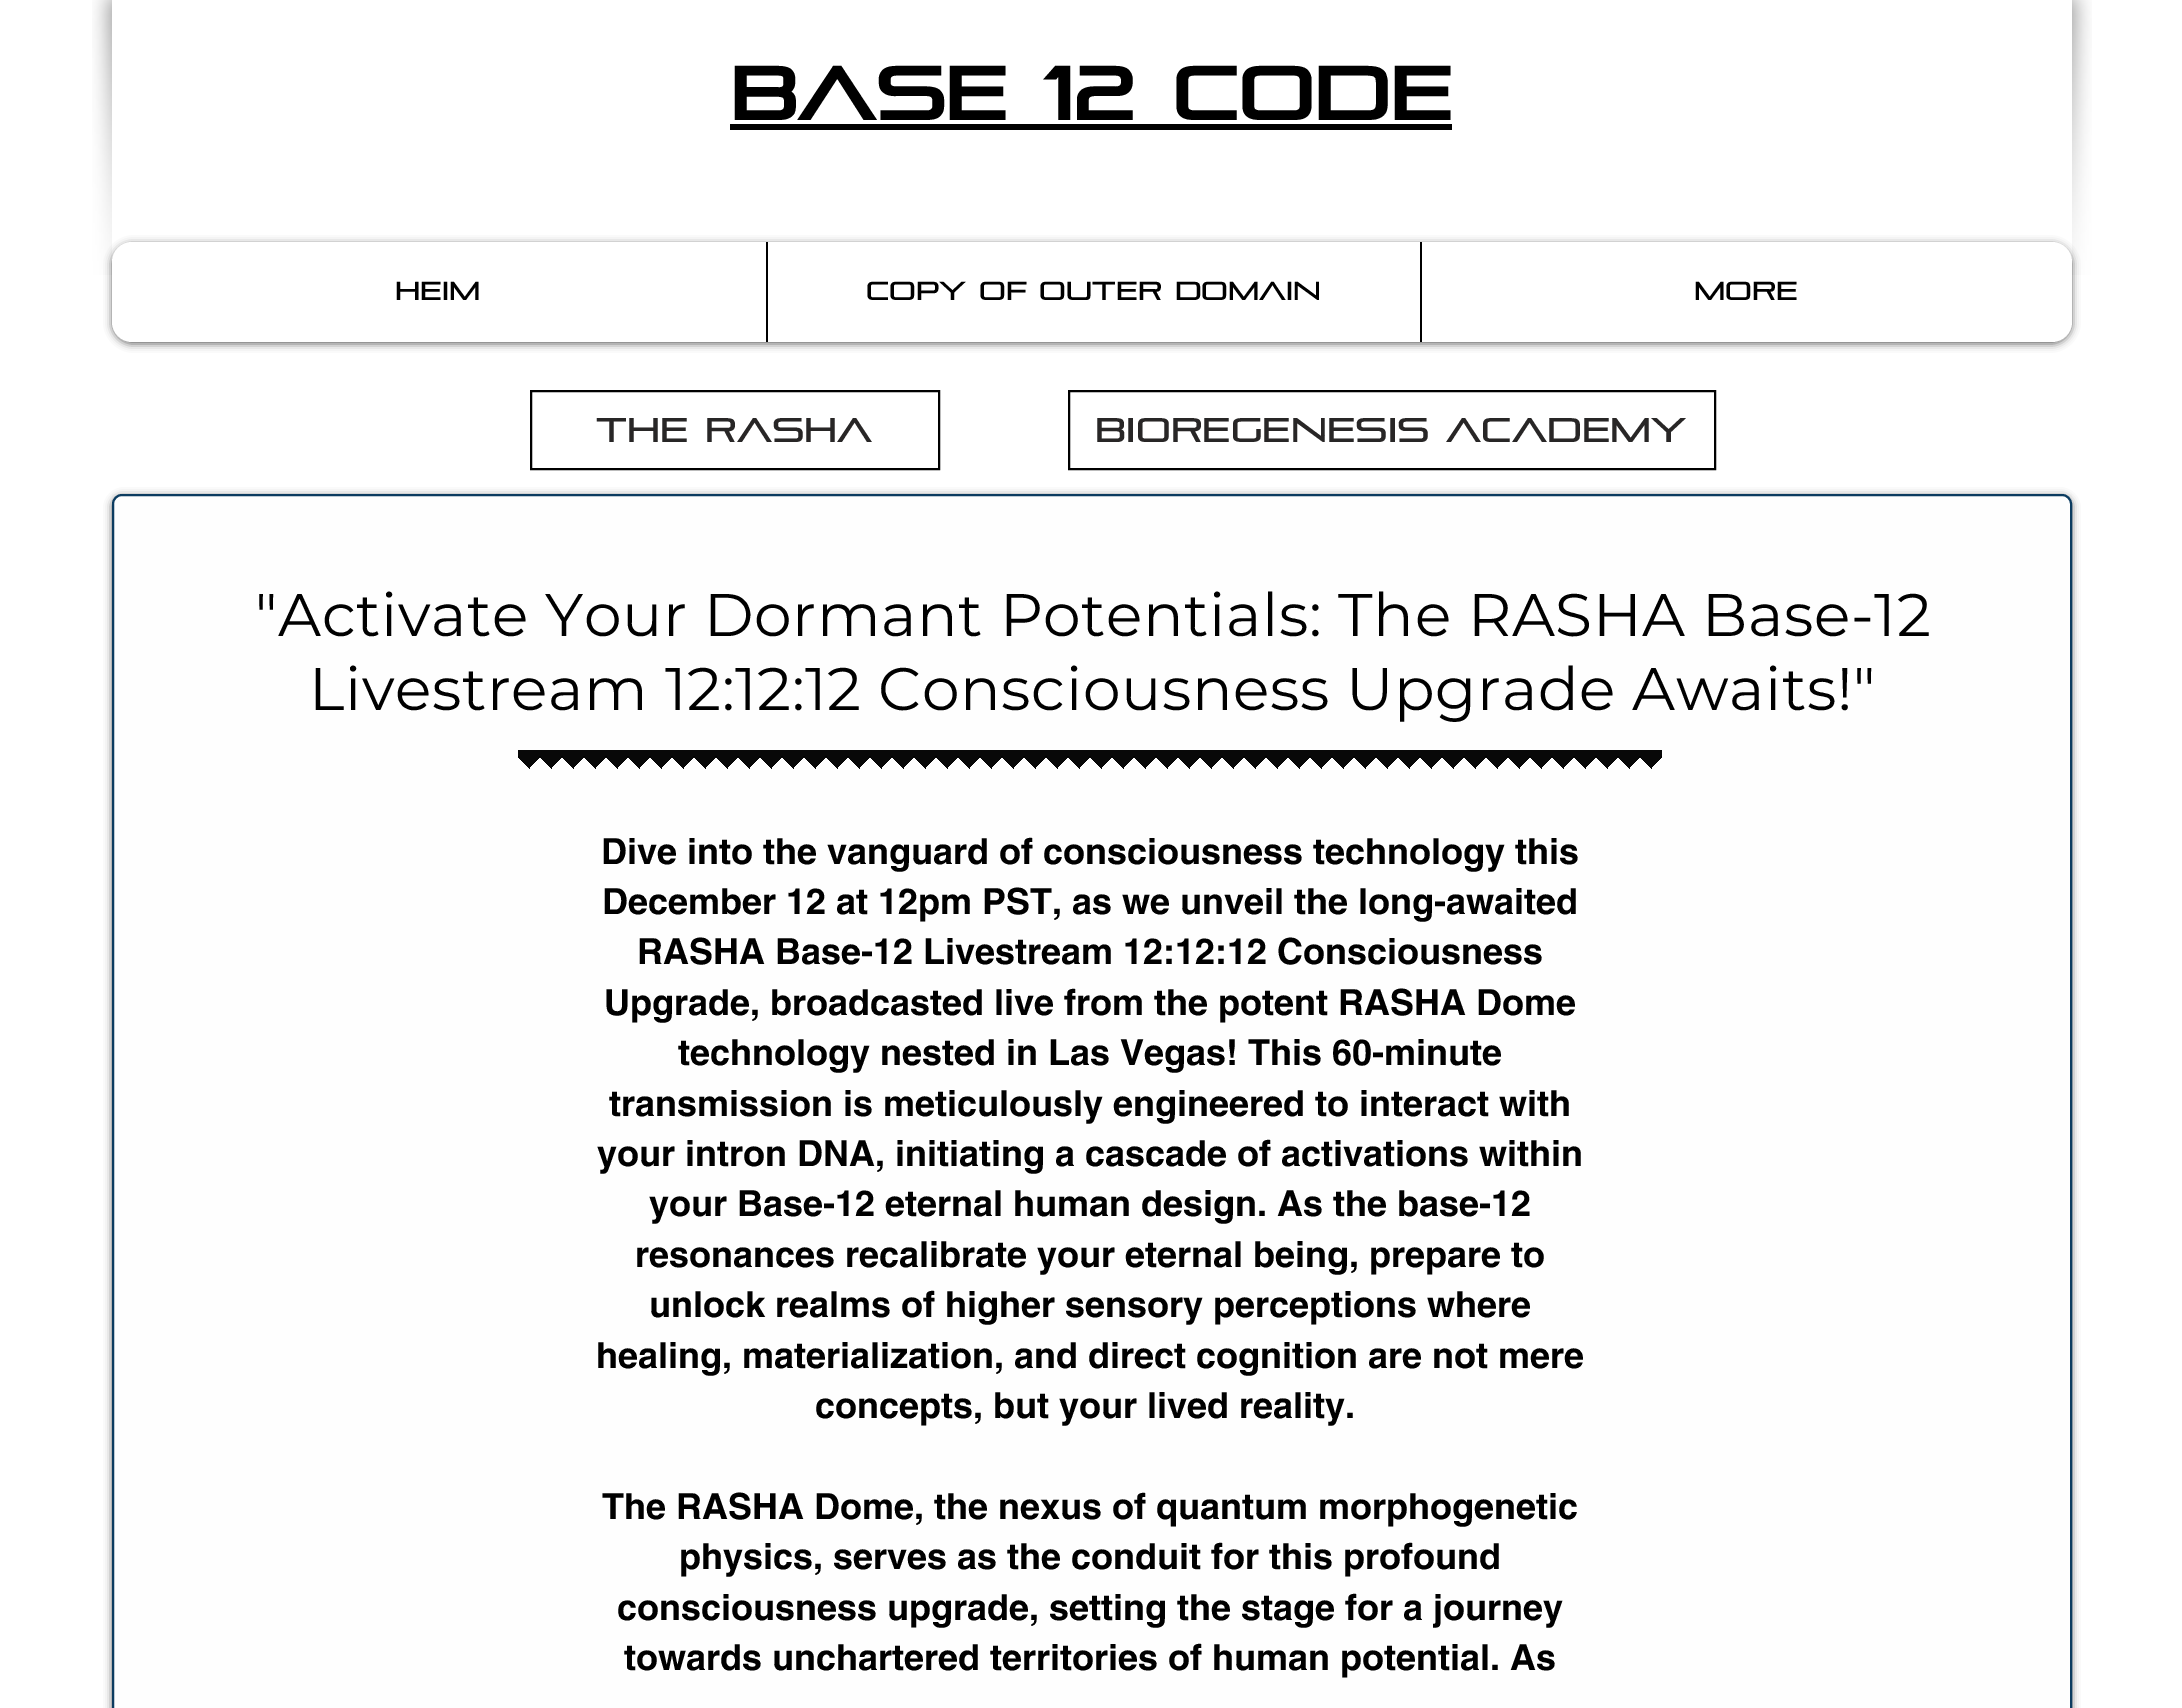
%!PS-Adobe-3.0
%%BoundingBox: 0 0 2182 1708
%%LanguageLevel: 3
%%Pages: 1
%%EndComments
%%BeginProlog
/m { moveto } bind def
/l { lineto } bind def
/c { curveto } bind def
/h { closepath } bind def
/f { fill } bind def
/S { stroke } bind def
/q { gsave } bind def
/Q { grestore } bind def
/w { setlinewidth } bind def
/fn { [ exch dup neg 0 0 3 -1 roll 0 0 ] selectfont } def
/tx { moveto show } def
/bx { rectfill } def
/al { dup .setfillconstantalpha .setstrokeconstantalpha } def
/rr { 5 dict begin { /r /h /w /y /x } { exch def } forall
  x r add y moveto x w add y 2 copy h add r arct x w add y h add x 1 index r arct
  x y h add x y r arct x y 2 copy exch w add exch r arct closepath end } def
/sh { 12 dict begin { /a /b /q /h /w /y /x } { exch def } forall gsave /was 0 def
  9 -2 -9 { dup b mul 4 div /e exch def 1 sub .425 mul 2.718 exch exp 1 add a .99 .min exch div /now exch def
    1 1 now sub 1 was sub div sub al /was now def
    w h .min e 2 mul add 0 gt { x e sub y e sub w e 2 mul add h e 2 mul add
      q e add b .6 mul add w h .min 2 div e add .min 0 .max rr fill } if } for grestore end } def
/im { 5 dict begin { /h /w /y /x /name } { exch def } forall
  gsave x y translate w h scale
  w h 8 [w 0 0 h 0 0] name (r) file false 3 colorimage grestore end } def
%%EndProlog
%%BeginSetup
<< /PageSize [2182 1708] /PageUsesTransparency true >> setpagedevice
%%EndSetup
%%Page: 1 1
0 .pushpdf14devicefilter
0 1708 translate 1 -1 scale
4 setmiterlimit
1 setgray
0 0 2182 1708 bx
(image0.raw) 92 0 20 275 im
(image1.raw) 2072 0 20 275 im
/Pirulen-Bold 74 fn
0 setgray
(BASE 12 CODE) 730 120 tx
730 124 722 6 bx
112 244 1960 100 20 4 0.6 sh
1 setgray
112 242 1960 100 20 rr f
/Pirulen-Regular 26 fn
0 setgray
(Heim) 395 300 tx
766 242 2 100 bx
(Copy of Outer Domain) 866 300 tx
1420 242 2 100 bx
(More) 1694 300 tx
2 w
531 391 408 78 rectstroke
/Pirulen-Regular 34 fn
0.157 0.149 0.149 setrgbcolor
(The RASHA) 596 442 tx
0 setgray
1069 391 646 78 rectstroke
0.157 0.149 0.149 setrgbcolor
(bioregenesis academy) 1095 442 tx
0.988 setgray
112 494 1960 1214 bx
q
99 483 m 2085 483 l 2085 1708 l 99 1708 l h 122 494 m 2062 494 l 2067.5 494 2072 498.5 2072 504 c 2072 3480 l 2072 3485.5 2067.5 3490 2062 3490 c 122 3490 l 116.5 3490 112 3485.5 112 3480 c 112 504 l 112 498.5 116.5 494 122 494 c h eoclip newpath
0 setgray
112 496 1960 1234 10 4 0.6 sh
Q
0.75 al
1 setgray
113 495 1958 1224 9 rr f
1 al
0.047 0.235 0.376 setrgbcolor
113 495 1958 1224 9 rr S
/Montserrat-Regular 60 fn
0 setgray
255 636 m 0.6 0 ("Activate Your Dormant Potentials: The RASHA Base-12) ashow
309 710 m 0.6 0 (Livestream 12:12:12 Consciousness Upgrade Awaits!") ashow
0.031 setgray
518 750 1144 6 bx
(image2.raw) 518 756 1144 11 im
(image3.raw) 518 756 1144 13 im
/helvetica-Bold 36 fn
0 setgray
(Dive into the vanguard of consciousness technology this) 601 864 tx
(December 12 at 12pm PST, as we unveil the long-awaited) 602 914 tx
(RASHA Base-12 Livestream 12:12:12 Consciousness) 637 964 tx
(Upgrade, broadcasted live from the potent RASHA Dome) 604 1015 tx
(technology nested in Las Vegas! This 60-minute) 678 1065 tx
(transmission is meticulously engineered to interact with) 609 1116 tx
(your intron DNA, initiating a cascade of activations within) 597 1166 tx
(your Base-12 eternal human design. As the base-12) 649 1216 tx
(resonances recalibrate your eternal being, prepare to) 635 1267 tx
(unlock realms of higher sensory perceptions where) 649 1317 tx
(healing, materialization, and direct cognition are not mere) 596 1368 tx
(concepts, but your lived reality.) 815 1418 tx
(The RASHA Dome, the nexus of quantum morphogenetic) 602 1519 tx
(physics, serves as the conduit for this profound) 679 1569 tx
(consciousness upgrade, setting the stage for a journey) 617 1620 tx
(towards unchartered territories of human potential. As) 624 1670 tx
.poppdf14devicefilter showpage
%%EOF
